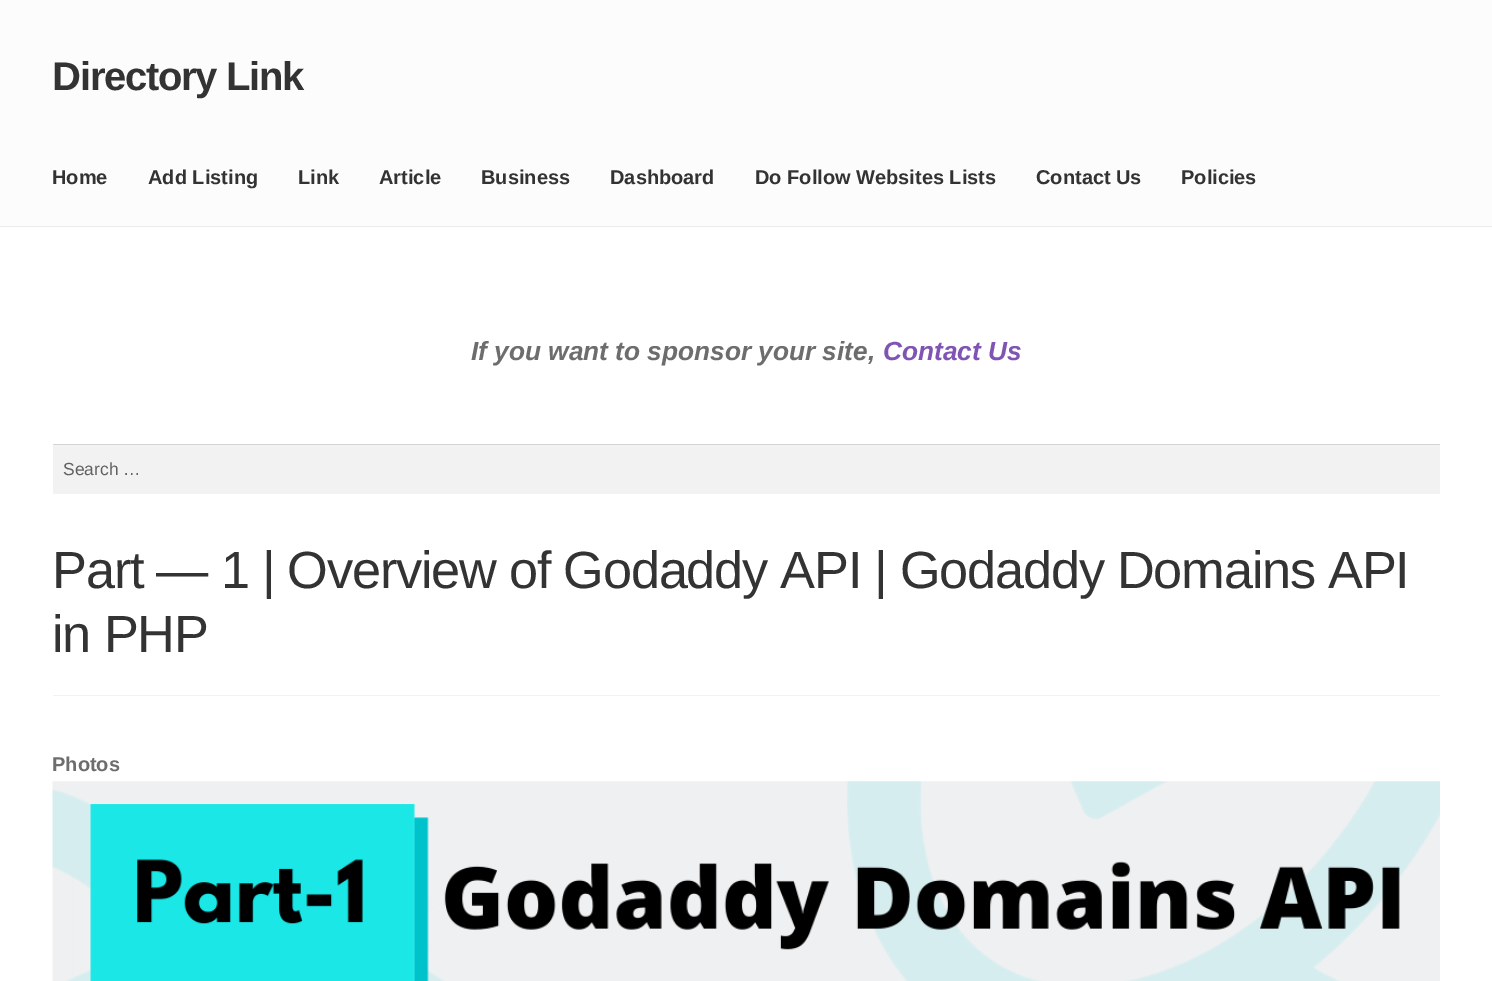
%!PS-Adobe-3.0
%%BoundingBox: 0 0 1492 981
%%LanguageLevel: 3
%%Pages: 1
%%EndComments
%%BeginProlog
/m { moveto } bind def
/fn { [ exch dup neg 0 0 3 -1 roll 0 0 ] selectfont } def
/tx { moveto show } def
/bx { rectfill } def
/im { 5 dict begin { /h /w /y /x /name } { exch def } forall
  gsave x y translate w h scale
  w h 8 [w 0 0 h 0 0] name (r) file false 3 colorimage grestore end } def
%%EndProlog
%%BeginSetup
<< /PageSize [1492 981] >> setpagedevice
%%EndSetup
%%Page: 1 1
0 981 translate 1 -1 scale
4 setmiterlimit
1 setgray
0 0 1492 981 bx
0.988 setgray
0 0 1492 228 bx
0.929 setgray
0 226 1492 1 bx
/LiberationSans-Bold 40 fn
0.2 setgray
52 90 m -1.25 0 (Directory Link) ashow
/LiberationSans-Bold 20 fn
(Home) 52 184 tx
(Add Listing) 148 184 tx
(Link) 298 184 tx
(Article) 379 184 tx
(Business) 481 184 tx
(Dashboard) 610 184 tx
(Do Follow Websites Lists) 755 184 tx
(Contact Us) 1036 184 tx
(Policies) 1181 184 tx
/LiberationSans-BoldItalic 26.25 fn
0.427 setgray
(If you want to sponsor your site,) 471 360 tx
0.498 0.329 0.702 setrgbcolor
(Contact Us) 883 360 tx
0.949 setgray
53 445 1387 49 bx
0.831 setgray
53 444 1387 1 bx
/LiberationSans-Regular 17.5 fn
0.38 setgray
(Search …) 63 475 tx
0.949 setgray
53 695 1387 1 bx
/LiberationSans-Regular 52.35 fn
0.2 setgray
52 588 m -1.25 0 (Part — 1 | Overview of Godaddy API | Godaddy Domains API) ashow
52 652 m -1.25 0 (in PHP) ashow
/LiberationSans-Bold 20 fn
0.427 setgray
(Photos) 52 771 tx
(image0.raw) 52 781 1388 200 im
showpage
%%EOF
